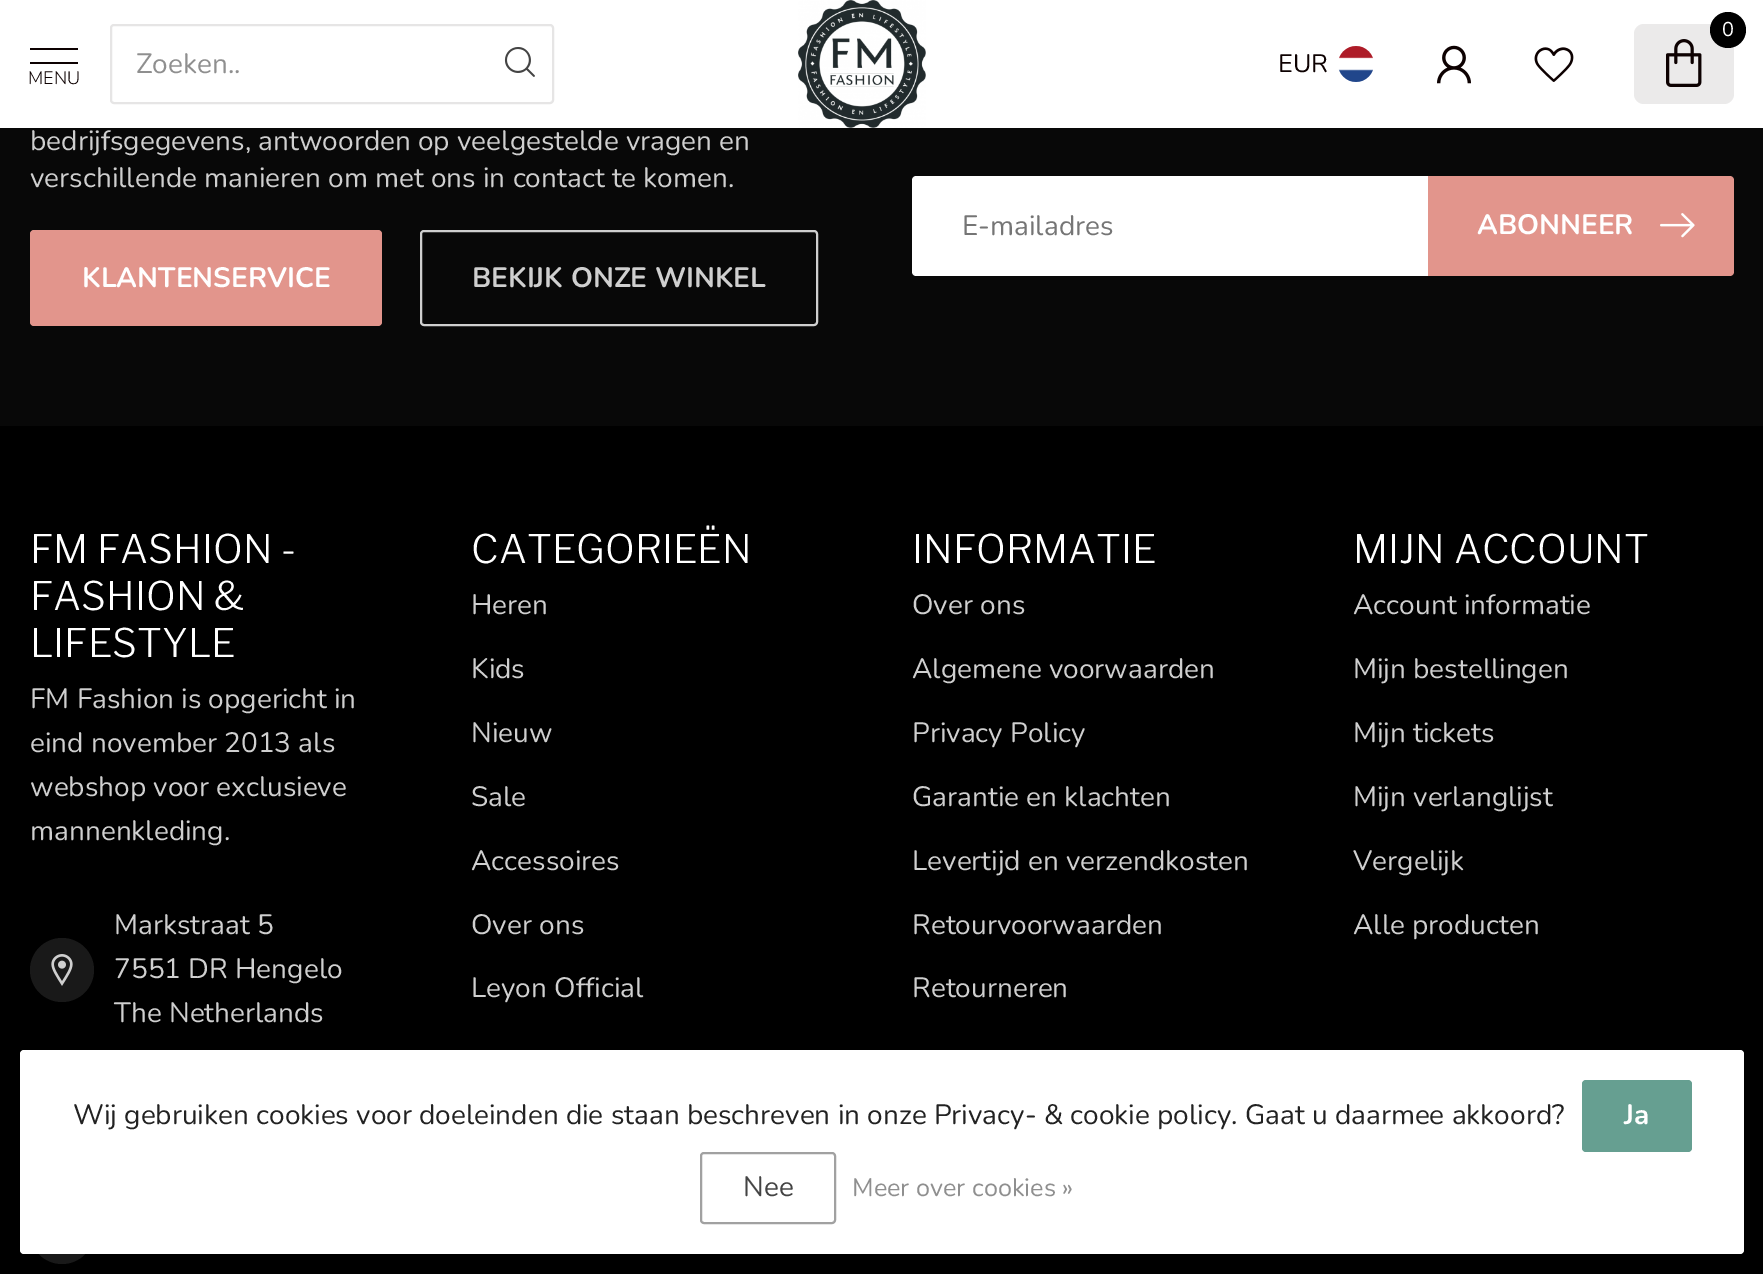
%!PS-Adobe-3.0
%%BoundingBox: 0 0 1763 1274
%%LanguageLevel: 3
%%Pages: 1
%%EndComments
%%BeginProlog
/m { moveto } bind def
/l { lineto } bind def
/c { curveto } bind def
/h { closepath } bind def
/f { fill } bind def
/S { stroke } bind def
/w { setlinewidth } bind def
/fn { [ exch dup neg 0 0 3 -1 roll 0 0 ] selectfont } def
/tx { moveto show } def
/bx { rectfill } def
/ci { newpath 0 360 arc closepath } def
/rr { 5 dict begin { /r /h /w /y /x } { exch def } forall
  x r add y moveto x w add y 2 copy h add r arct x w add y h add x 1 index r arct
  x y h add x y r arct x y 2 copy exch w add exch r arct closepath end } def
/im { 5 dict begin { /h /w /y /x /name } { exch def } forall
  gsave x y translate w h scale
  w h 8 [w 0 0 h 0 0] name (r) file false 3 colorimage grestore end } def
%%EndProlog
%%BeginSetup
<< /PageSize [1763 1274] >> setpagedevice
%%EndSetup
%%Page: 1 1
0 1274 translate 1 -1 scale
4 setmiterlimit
0 setgray
0 0 1763 1274 bx
1 setgray
0 0 1763 128 bx
0.902 0.898 0.898 setrgbcolor
2 w
111 25 442 78 3 rr S
/Nunito-Regular 28 fn
0.561 setgray
(Zoeken..) 136 73 tx
(image0.raw) 504 47 31 30 im
0.051 0.004 0.004 setrgbcolor
30 48 48 2 bx
30 62 48 2 bx
/Nunito-Light 18 fn
(MENU) 28 84 tx
(image1.raw) 798 0 128 128 im
0.922 0.918 0.918 setrgbcolor
1634 24 100 80 10 rr f
0 setgray
1728 30 18 ci f
/Nunito-Regular 20 fn
1 setgray
(0) 1722 36 tx
(image2.raw) 1666 39 36 48 im
/Nunito-Regular 25.25 fn
0.051 0.004 0.004 setrgbcolor
(EUR) 1278 72 tx
(image3.raw) 1338 46 35 36 im
(image4.raw) 1437 45 34 39 im
(image5.raw) 1534 47 40 35 im
0.031 setgray
0 128 1763 298 bx
/Nunito-Regular 28 fn
0.812 setgray
(bedrijfsgegevens, antwoorden op veelgestelde vragen en) 30 150 tx
(verschillende manieren om met ons in contact te komen.) 30 187 tx
0.886 0.584 0.549 setrgbcolor
30 230 352 96 4 rr f
/Nunito-Bold 28 fn
1 setgray
(KLANTENSERVICE) 82 287 tx
0.812 setgray
421 231 396 94 3 rr S
(BEKIJK ONZE WINKEL) 472 287 tx
1 setgray
916 176 m 1428 176 l 1428 276 l 916 276 l 914 276 912 274 912 272 c 912 180 l 912 178 914 176 916 176 c h f
/Nunito-Regular 28 fn
0.459 setgray
(E-mailadres) 962 235 tx
0.886 0.584 0.549 setrgbcolor
1428 176 m 1730 176 l 1732 176 1734 178 1734 180 c 1734 272 l 1734 274 1732 276 1730 276 c 1428 276 l h f
/Nunito-Bold 28 fn
1 setgray
(ABONNEER) 1477 234 tx
(image6.raw) 1660 213 35 25 im
/LibreFranklin-Light 39.25 fn
(FM FASHION -) 30 563 tx
(FASHION &) 30 610 tx
(LIFESTYLE) 30 657 tx
/Nunito-Regular 28 fn
0.812 setgray
(FM Fashion is opgericht in) 30 708 tx
(eind november 2013 als) 30 752 tx
(webshop voor exclusieve) 30 796 tx
(mannenkleding.) 30 840 tx
0.098 setgray
62 970 32 ci f
(image7.raw) 51 954 22 32 im
0.812 setgray
(Markstraat 5) 114 934 tx
(7551 DR Hengelo) 114 978 tx
(The Netherlands) 114 1022 tx
0.098 setgray
62 1232 32 ci f
/LibreFranklin-Light 39.25 fn
1 setgray
(CATEGORIEËN) 471 563 tx
/Nunito-Regular 28 fn
0.812 setgray
(Heren) 471 614 tx
(Kids) 471 678 tx
(Nieuw) 471 742 tx
(Sale) 471 806 tx
(Accessoires) 471 870 tx
(Over ons) 471 934 tx
(Leyon Official) 471 997 tx
/LibreFranklin-Light 39.25 fn
1 setgray
(INFORMATIE) 912 563 tx
/Nunito-Regular 28 fn
0.812 setgray
(Over ons) 912 614 tx
(Algemene voorwaarden) 912 678 tx
(Privacy Policy) 912 742 tx
(Garantie en klachten) 912 806 tx
(Levertijd en verzendkosten) 912 870 tx
(Retourvoorwaarden) 912 934 tx
(Retourneren) 912 997 tx
/LibreFranklin-Light 39.25 fn
1 setgray
(MIJN ACCOUNT) 1353 563 tx
/Nunito-Regular 28 fn
0.812 setgray
(Account informatie) 1353 614 tx
(Mijn bestellingen) 1353 678 tx
(Mijn tickets) 1353 742 tx
(Mijn verlanglijst) 1353 806 tx
(Vergelijk) 1353 870 tx
(Alle producten) 1353 934 tx
1 setgray
20 1050 1724 204 4 rr f
0.133 setgray
(Wij gebruiken cookies voor doeleinden die staan beschreven in onze Privacy- & cookie policy. Gaat u daarmee akkoord?) 73 1124 tx
0.4 0.624 0.569 setrgbcolor
1582 1080 110 72 4 rr f
/Nunito-Bold 28 fn
1 setgray
(Ja) 1624 1124 tx
0.631 setgray
701 1153 134 70 3 rr S
/Nunito-Regular 28 fn
0.267 setgray
(Nee) 743 1196 tx
/Nunito-Regular 25.25 fn
0.561 setgray
(Meer over cookies ») 852 1196 tx
showpage
%%EOF
